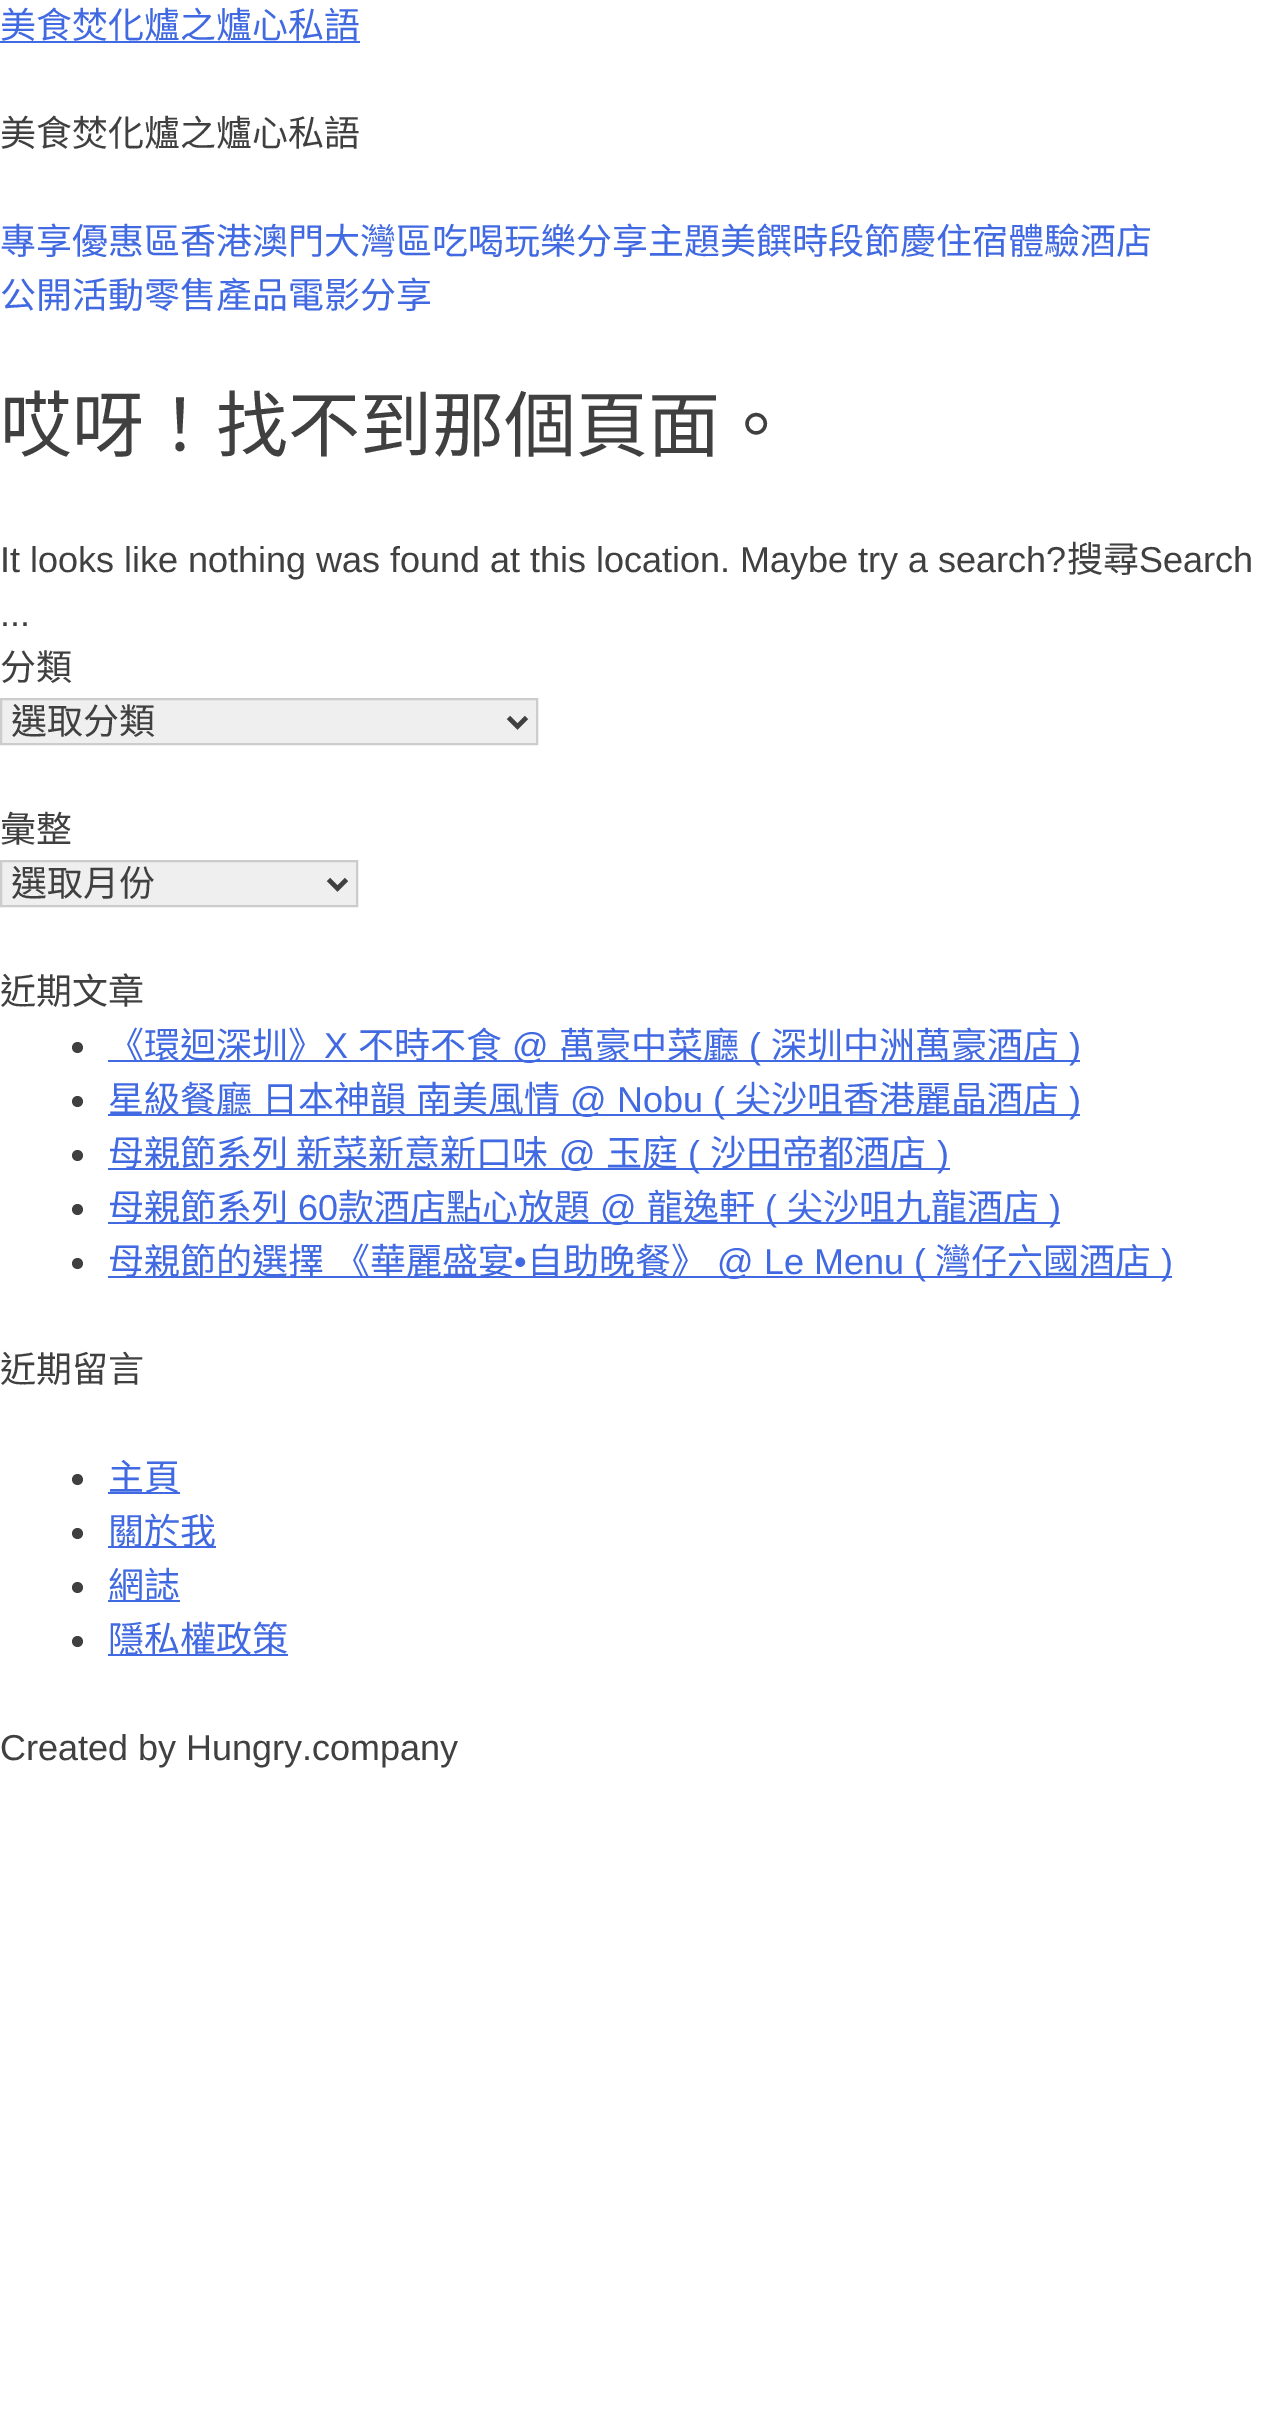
%!PS-Adobe-3.0
%%BoundingBox: 0 0 1272 2419
%%LanguageLevel: 3
%%Pages: 1
%%EndComments
%%BeginProlog
/m { moveto } bind def
/l { lineto } bind def
/h { closepath } bind def
/f { fill } bind def
/S { stroke } bind def
/q { gsave } bind def
/Q { grestore } bind def
/w { setlinewidth } bind def
/fn { [ exch dup neg 0 0 3 -1 roll 0 0 ] selectfont } def
/tx { moveto show } def
/bx { rectfill } def
/ci { newpath 0 360 arc closepath } def
%%EndProlog
%%BeginSetup
<< /PageSize [1272 2419] >> setpagedevice
%%EndSetup
%%Page: 1 1
0 2419 translate 1 -1 scale
4 setmiterlimit
1 setgray
0 0 1272 2419 bx
/NotoSansCJKHK-Regular 36 fn
0.255 0.412 0.882 setrgbcolor
(美食焚化爐之爐心私語) 0 38 tx
0 41 360 2 bx
0.251 setgray
(美食焚化爐之爐心私語) 0 146 tx
0.255 0.412 0.882 setrgbcolor
(專享優惠區香港澳門大灣區吃喝玩樂分享主題美饌時段節慶住宿體驗酒店) 0 254 tx
(公開活動零售產品電影分享) 0 308 tx
/NotoSansCJKHK-Regular 72 fn
0.251 setgray
(哎呀！找不到那個頁面。) 0 451 tx
/LiberationSans-Regular 36 fn
(It looks like nothing was found at this location. Maybe try a search?) 0 572 tx
/NotoSansCJKHK-Regular 36 fn
(搜尋) 1067 572 tx
/LiberationSans-Regular 36 fn
(Search) 1139 572 tx
(...) 0 626 tx
/NotoSansCJKHK-Regular 36 fn
(分類) 0 680 tx
0.937 setgray
1 699 m 537 699 l 537 744 l 1 744 l h q f Q
0.8 setgray
2 w
S
0.251 setgray
4.5 w
508.5 717.5 m 517.5 726.5 l 526.5 717.5 l S
(選取分類) 11 734 tx
(彙整) 0 842 tx
0.937 setgray
1 861 m 357 861 l 357 906 l 1 906 l h q f Q
0.8 setgray
2 w
S
0.251 setgray
4.5 w
328.5 879.5 m 337.5 888.5 l 346.5 879.5 l S
(選取月份) 11 896 tx
(近期文章) 0 1004 tx
77.5 1047.5 5.5 ci f
0.255 0.412 0.882 setrgbcolor
108 1060 972 2 bx
(《環迴深圳》) 108 1058 tx
/LiberationSans-Regular 36 fn
(X) 324 1058 tx
/NotoSansCJKHK-Regular 36 fn
(不時不食) 358 1058 tx
/LiberationSans-Regular 36 fn
(@) 512 1058 tx
/NotoSansCJKHK-Regular 36 fn
(萬豪中菜廳) 559 1058 tx
/LiberationSans-Regular 36 fn
(\() 749 1058 tx
/NotoSansCJKHK-Regular 36 fn
(深圳中洲萬豪酒店) 771 1058 tx
/LiberationSans-Regular 36 fn
(\)) 1069 1058 tx
0.251 setgray
77.5 1101.5 5.5 ci f
0.255 0.412 0.882 setrgbcolor
108 1114 972 2 bx
/NotoSansCJKHK-Regular 36 fn
(星級餐廳) 108 1112 tx
(日本神韻) 262 1112 tx
(南美風情) 416 1112 tx
/LiberationSans-Regular 36 fn
(@ Nobu \() 570 1112 tx
/NotoSansCJKHK-Regular 36 fn
(尖沙咀香港麗晶酒店) 735 1112 tx
/LiberationSans-Regular 36 fn
(\)) 1069 1112 tx
0.251 setgray
77.5 1155.5 5.5 ci f
0.255 0.412 0.882 setrgbcolor
108 1168 842 2 bx
/NotoSansCJKHK-Regular 36 fn
(母親節系列 新菜新意新口味) 108 1166 tx
/LiberationSans-Regular 36 fn
(@) 559 1166 tx
/NotoSansCJKHK-Regular 36 fn
(玉庭) 606 1166 tx
/LiberationSans-Regular 36 fn
(\() 688 1166 tx
/NotoSansCJKHK-Regular 36 fn
(沙田帝都酒店) 710 1166 tx
/LiberationSans-Regular 36 fn
(\)) 937 1166 tx
0.251 setgray
77.5 1209.5 5.5 ci f
0.255 0.412 0.882 setrgbcolor
108 1222 952 2 bx
/NotoSansCJKHK-Regular 36 fn
(母親節系列) 108 1220 tx
/LiberationSans-Regular 36 fn
(60) 298 1220 tx
/NotoSansCJKHK-Regular 36 fn
(款酒店點心放題) 338 1220 tx
/LiberationSans-Regular 36 fn
(@) 600 1220 tx
/NotoSansCJKHK-Regular 36 fn
(龍逸軒) 647 1220 tx
/LiberationSans-Regular 36 fn
(\() 765 1220 tx
/NotoSansCJKHK-Regular 36 fn
(尖沙咀九龍酒店) 787 1220 tx
/LiberationSans-Regular 36 fn
(\)) 1049 1220 tx
0.251 setgray
77.5 1263.5 5.5 ci f
0.255 0.412 0.882 setrgbcolor
108 1276 1064 2 bx
/NotoSansCJKHK-Regular 36 fn
(母親節的選擇) 108 1274 tx
(《華麗盛宴) 334 1274 tx
/LiberationSans-Regular 36 fn
(•) 514 1274 tx
/NotoSansCJKHK-Regular 36 fn
(自助晚餐》) 527 1274 tx
/LiberationSans-Regular 36 fn
(@ Le Menu \() 717 1274 tx
/NotoSansCJKHK-Regular 36 fn
(灣仔六國酒店) 935 1274 tx
/LiberationSans-Regular 36 fn
(\)) 1161 1274 tx
/NotoSansCJKHK-Regular 36 fn
0.251 setgray
(近期留言) 0 1382 tx
77.5 1479.5 5.5 ci f
0.255 0.412 0.882 setrgbcolor
108 1492 72 2 bx
(主頁) 108 1490 tx
0.251 setgray
77.5 1533.5 5.5 ci f
0.255 0.412 0.882 setrgbcolor
108 1546 108 2 bx
(關於我) 108 1544 tx
0.251 setgray
77.5 1587.5 5.5 ci f
0.255 0.412 0.882 setrgbcolor
108 1600 72 2 bx
(網誌) 108 1598 tx
0.251 setgray
77.5 1641.5 5.5 ci f
0.255 0.412 0.882 setrgbcolor
108 1654 180 2 bx
(隱私權政策) 108 1652 tx
/LiberationSans-Regular 36 fn
0.251 setgray
(Created by Hungry.company) 0 1760 tx
showpage
%%EOF
